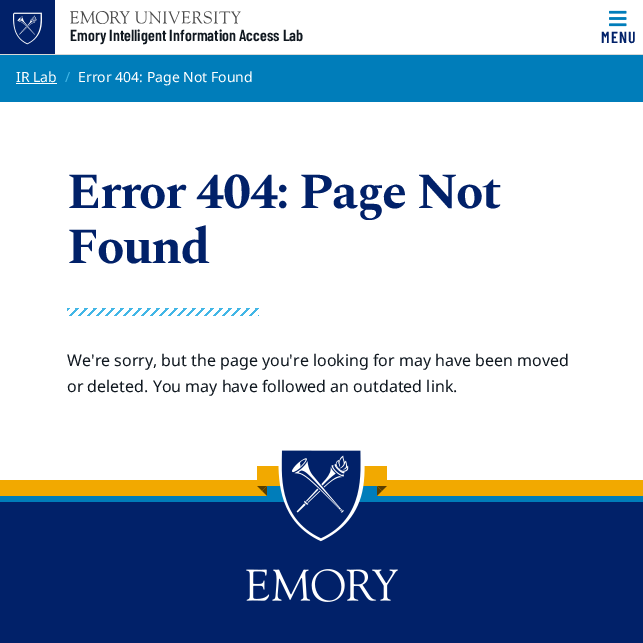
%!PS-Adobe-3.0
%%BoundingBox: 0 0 643 643
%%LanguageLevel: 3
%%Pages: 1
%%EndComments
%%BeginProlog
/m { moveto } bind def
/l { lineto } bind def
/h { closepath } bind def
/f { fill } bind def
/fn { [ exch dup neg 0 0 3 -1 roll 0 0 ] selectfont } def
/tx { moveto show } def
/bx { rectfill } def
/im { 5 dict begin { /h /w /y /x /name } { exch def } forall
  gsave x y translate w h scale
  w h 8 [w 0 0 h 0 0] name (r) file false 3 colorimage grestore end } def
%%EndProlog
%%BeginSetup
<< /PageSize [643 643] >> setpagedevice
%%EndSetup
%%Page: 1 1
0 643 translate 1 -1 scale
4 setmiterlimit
0.004 0.129 0.412 setrgbcolor
0 0 643 643 bx
0.851 0.851 0.839 setrgbcolor
0 54 643 1 bx
1 setgray
55 0 588 54 bx
(image0.raw) 13 12 29 33 im
(image1.raw) 70 11 171 13 im
/BarlowCondensed-SemiBold 16 fn
0.063 0.094 0.125 setrgbcolor
(Emory Intelligent Information Access Lab) 70 41 tx
(image2.raw) 609 10 18 17 im
0.004 0.129 0.412 setrgbcolor
601 43 m 1 0 (MENU) ashow
1 setgray
0 102 643 378 bx
0 0.49 0.729 setrgbcolor
0 55 643 47 bx
/NotoSans-Regular 14 fn
1 setgray
(IR Lab) 16 82 tx
16 83 41 1 bx
0.255 0.714 0.902 setrgbcolor
(/) 65 82 tx
1 setgray
(Error 404: Page Not Found) 78 82 tx
/Spectral-Bold 50.25 fn
0.004 0.129 0.412 setrgbcolor
67 208 m -1.5 0 (Error 404: Page Not) ashow
67 263 m -1.5 0 (Found) ashow
(image3.raw) 67 308 192 8 im
/NotoSans-Regular 16 fn
0.063 0.094 0.125 setrgbcolor
(We're sorry, but the page you're looking for may have been moved) 67 366 tx
(or deleted. You may have followed an outdated link.) 67 392 tx
0.949 0.663 0 setrgbcolor
0 480 643 16 bx
0 0.49 0.729 setrgbcolor
267 486 110 10 bx
0.949 0.663 0 setrgbcolor
257 466 130 14 bx
0.349 0.243 0 setrgbcolor
257 486 m 267 486 l 262 491 l h f
267 486 m 267 496 l 262 491 l h f
377 486 m 387 486 l 382 491 l h f
377 496 m 377 486 l 382 491 l h f
0 0.49 0.729 setrgbcolor
0 496 643 6 bx
(image4.raw) 246 450 152 152 im
showpage
%%EOF
